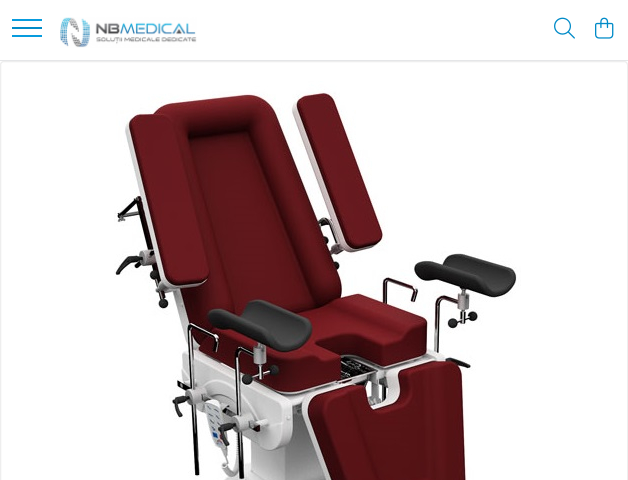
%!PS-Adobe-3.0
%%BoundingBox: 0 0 628 480
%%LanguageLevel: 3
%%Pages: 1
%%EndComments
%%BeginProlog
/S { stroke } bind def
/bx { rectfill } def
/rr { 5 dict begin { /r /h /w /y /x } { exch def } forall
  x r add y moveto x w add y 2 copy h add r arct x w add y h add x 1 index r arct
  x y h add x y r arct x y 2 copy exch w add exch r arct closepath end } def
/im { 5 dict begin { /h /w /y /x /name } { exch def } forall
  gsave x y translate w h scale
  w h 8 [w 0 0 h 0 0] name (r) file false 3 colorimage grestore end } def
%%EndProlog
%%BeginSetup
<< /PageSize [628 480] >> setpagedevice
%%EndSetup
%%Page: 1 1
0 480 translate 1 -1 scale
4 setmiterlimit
1 setgray
0 0 628 480 bx
0.898 0.902 0.91 setrgbcolor
0 60 628 1 bx
0.004 0.545 0.784 setrgbcolor
12 27 30 2 bx
0.031 0.612 0.871 setrgbcolor
12 19 30 2 bx
12 35 30 2 bx
(image0.raw) 60 17 137 31 im
(image1.raw) 554 17 21 22 im
(image2.raw) 595 17 19 22 im
0.933 setgray
0.5 61.5 627 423 3.5 rr S
(image3.raw) 114 81 407 399 im
showpage
%%EOF
